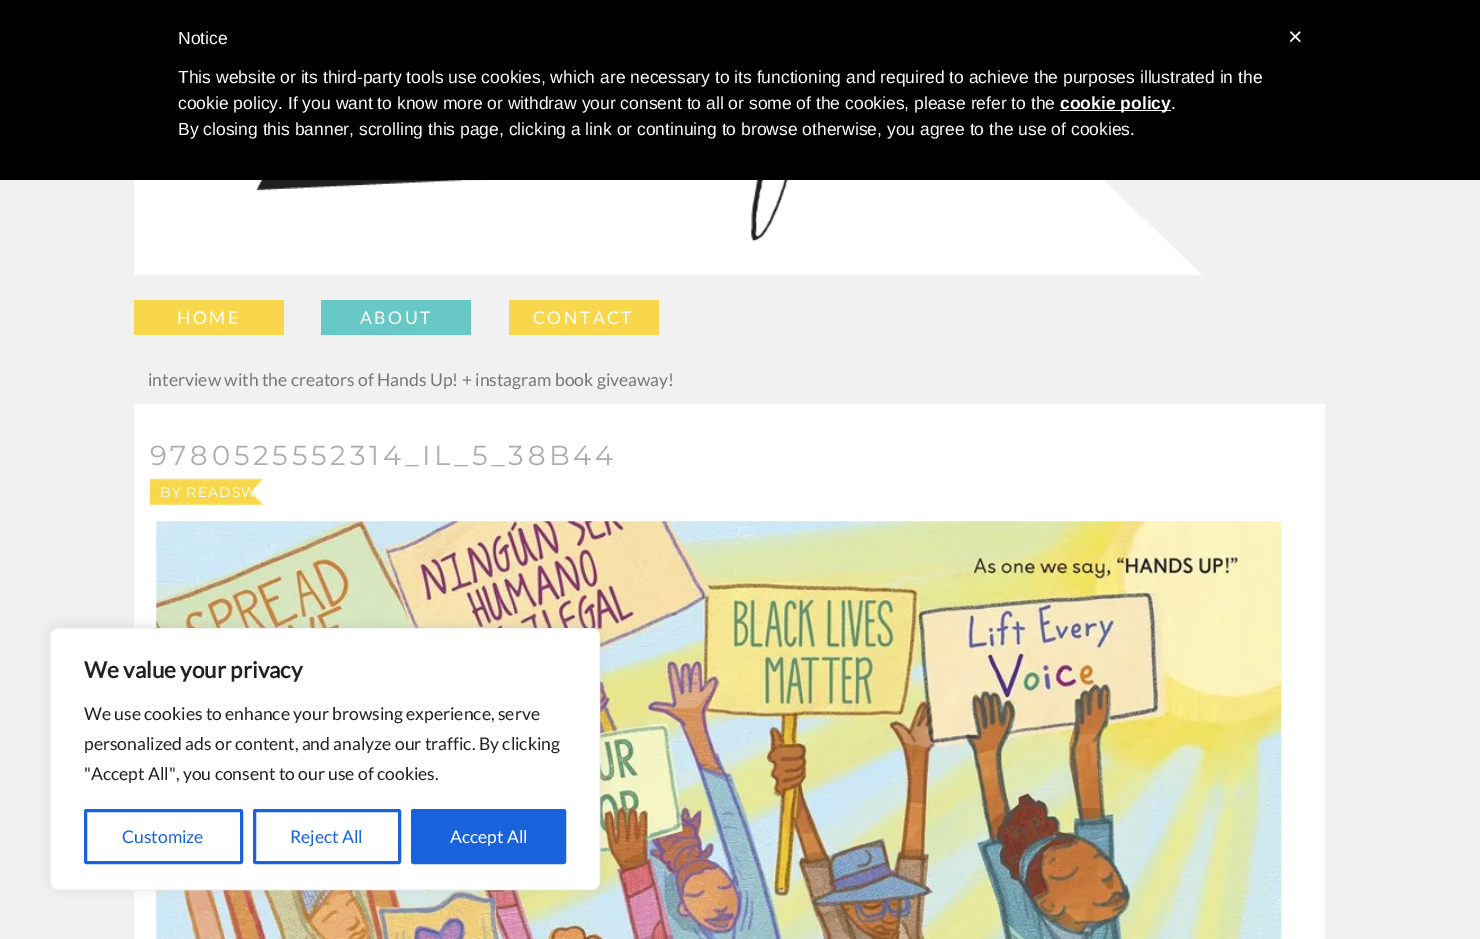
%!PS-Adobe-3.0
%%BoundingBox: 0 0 1480 939
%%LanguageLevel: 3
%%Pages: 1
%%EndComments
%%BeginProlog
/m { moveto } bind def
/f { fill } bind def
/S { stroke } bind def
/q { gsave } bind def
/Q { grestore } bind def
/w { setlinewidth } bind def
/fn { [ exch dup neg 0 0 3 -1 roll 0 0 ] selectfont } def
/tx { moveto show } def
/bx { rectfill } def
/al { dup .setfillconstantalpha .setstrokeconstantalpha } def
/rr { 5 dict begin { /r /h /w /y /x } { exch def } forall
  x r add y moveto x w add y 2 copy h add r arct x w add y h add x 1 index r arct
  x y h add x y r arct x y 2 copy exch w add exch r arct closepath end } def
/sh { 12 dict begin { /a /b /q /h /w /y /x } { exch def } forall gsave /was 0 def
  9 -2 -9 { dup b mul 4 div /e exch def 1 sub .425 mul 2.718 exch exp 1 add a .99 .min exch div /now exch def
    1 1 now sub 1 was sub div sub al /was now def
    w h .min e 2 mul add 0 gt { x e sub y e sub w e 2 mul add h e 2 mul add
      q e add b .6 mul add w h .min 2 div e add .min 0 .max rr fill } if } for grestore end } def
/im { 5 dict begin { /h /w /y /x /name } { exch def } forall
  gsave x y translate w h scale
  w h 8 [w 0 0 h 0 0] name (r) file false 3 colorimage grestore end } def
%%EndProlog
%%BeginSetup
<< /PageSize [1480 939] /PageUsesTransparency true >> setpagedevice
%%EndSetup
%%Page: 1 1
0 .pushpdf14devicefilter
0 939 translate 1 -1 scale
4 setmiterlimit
0.945 setgray
0 0 1480 939 bx
0 setgray
0 0 1480 180 bx
/LiberationSans-Regular 17.5 fn
1 setgray
(Notice) 178 44 tx
(This website or its third-party tools use cookies, which are necessary to its functioning and required to achieve the purposes illustrated in the) 178 83 tx
(cookie policy. If you want to know more or withdraw your consent to all or some of the cookies, please refer to the) 178 109 tx
1060 110 111 1 bx
/LiberationSans-Bold 17.5 fn
(cookie policy) 1060 109 tx
/LiberationSans-Regular 17.5 fn
(.) 1171 109 tx
(By closing this banner, scrolling this page, clicking a link or continuing to browse otherwise, you agree to the use of cookies.) 178 135 tx
/LiberationSans-Regular 25 fn
(×) 1288 45 tx
(image0.raw) 134 180 1068 95 im
0.976 0.843 0.302 setrgbcolor
134 300 150 35 bx
/Lato-Regular 17.5 fn
1 setgray
177 324 m 2.5 0 (HOME) ashow
0.408 0.784 0.776 setrgbcolor
321 300 150 35 bx
1 setgray
360 324 m 2.5 0 (ABOUT) ashow
0.976 0.843 0.302 setrgbcolor
509 300 150 35 bx
1 setgray
533 324 m 2.5 0 (CONTACT) ashow
0.467 setgray
(interview with the creators of Hands Up! + instagram book giveaway!) 148 386 tx
1 setgray
134 404 1191 535 bx
/Montserrat-Thin 27.5 fn
0.671 0.678 0.69 setrgbcolor
150 465 m 3.75 0 (9780525552314_IL_5_38B44) ashow
(image1.raw) 150 478 113 27 im
/Montserrat-Thin 13.75 fn
1 setgray
160 497 m 1.25 0 (BY READSW) ashow
(image2.raw) 156 521 1126 418 im
0.675 0.671 0.671 setrgbcolor
50 626 550 263 8 6 0.3 sh
1 setgray
50.5 628.5 549 261 7.5 rr q f Q
0.957 setgray
S
/Lato-Bold 22.5 fn
0.129 setgray
(We value your privacy) 84 678 tx
/Lato-Regular 17.5 fn
(We use cookies to enhance your browsing experience, serve) 84 720 tx
(personalized ads or content, and analyze our traffic. By clicking) 84 750 tx
("Accept All", you consent to our use of cookies.) 84 780 tx
0.094 0.388 0.863 setrgbcolor
3 w
85.5 810.5 156 52 1 rr S
(Customize) 122 843 tx
254.5 810.5 145 52 1 rr S
(Reject All) 290 843 tx
412.5 810.5 152 52 1 rr q f Q
S
1 setgray
(Accept All) 450 843 tx
.poppdf14devicefilter showpage
%%EOF
